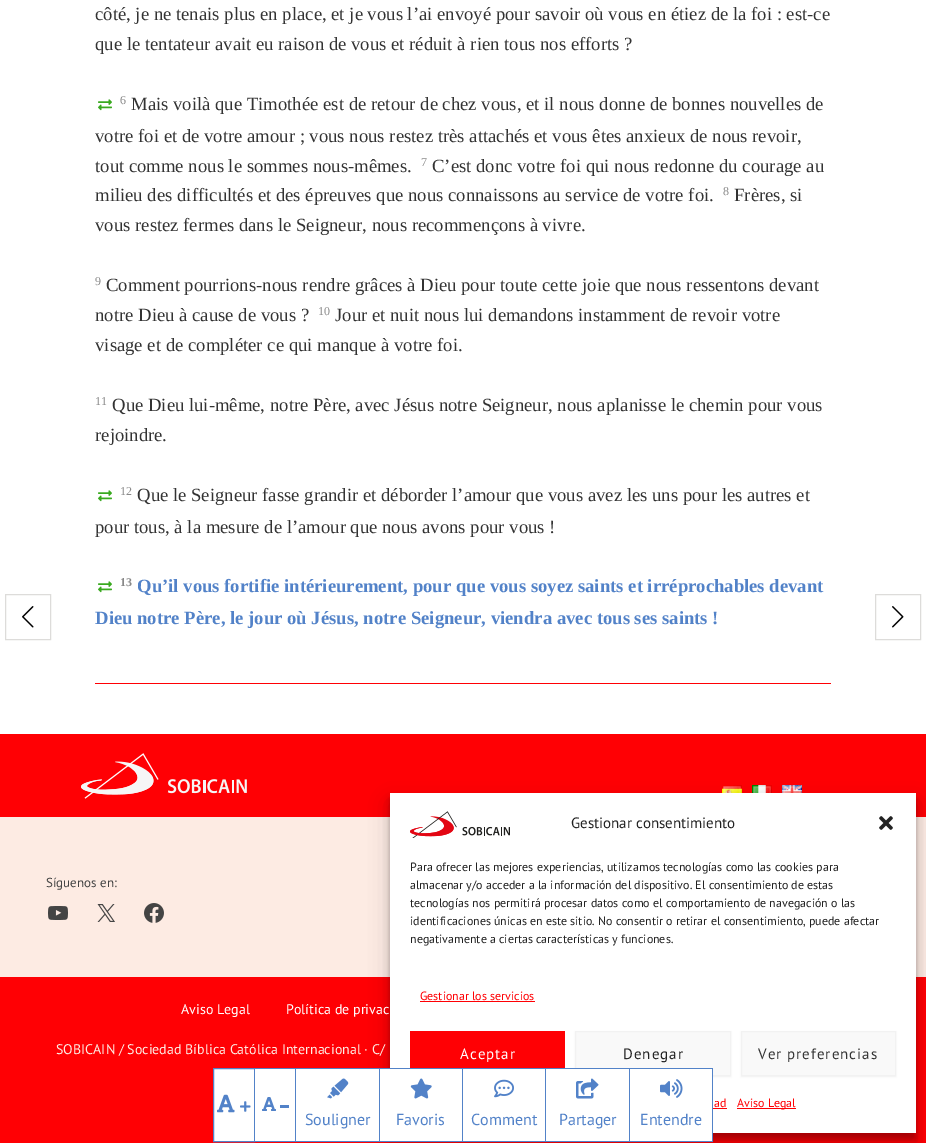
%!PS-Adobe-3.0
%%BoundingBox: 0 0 926 1143
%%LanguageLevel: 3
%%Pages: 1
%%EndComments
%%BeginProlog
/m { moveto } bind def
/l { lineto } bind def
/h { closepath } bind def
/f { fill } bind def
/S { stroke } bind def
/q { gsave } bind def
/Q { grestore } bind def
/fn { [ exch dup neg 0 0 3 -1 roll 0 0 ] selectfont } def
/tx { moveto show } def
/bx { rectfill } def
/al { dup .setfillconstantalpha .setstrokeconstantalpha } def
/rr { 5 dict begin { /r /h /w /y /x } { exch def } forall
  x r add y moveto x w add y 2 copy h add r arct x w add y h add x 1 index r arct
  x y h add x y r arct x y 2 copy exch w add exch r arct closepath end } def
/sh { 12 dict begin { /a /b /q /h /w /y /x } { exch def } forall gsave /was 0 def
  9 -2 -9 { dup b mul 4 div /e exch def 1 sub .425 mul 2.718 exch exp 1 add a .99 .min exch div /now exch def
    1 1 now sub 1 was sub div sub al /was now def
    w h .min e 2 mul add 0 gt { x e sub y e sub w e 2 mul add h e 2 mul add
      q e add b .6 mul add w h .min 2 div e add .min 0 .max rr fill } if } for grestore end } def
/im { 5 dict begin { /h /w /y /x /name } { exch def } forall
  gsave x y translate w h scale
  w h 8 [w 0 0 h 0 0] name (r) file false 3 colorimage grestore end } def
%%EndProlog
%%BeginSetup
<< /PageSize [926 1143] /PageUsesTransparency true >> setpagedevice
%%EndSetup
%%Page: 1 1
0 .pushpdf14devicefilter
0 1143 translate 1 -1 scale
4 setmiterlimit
1 setgray
0 0 926 1143 bx
/LiberationSerif-Regular 18.7 fn
0.2 setgray
(côté, je ne tenais plus en place, et je vous l’ai envoyé pour savoir où vous en étiez de la foi : est-ce) 95 20 tx
(que le tentateur avait eu raison de vous et réduit à rien tous nos efforts ?) 95 50 tx
(image0.raw) 98 99 14 12 im
/LiberationSerif-Regular 12 fn
0.533 setgray
(6) 120 104 tx
/LiberationSerif-Regular 18.7 fn
0.2 setgray
(Mais voilà que Timothée est de retour de chez vous, et il nous donne de bonnes nouvelles de) 131 110 tx
(votre foi et de votre amour ; vous nous restez très attachés et vous êtes anxieux de nous revoir,) 95 142 tx
(tout comme nous le sommes nous-mêmes.) 95 172 tx
/LiberationSerif-Regular 12 fn
0.533 setgray
(7) 421 166 tx
/LiberationSerif-Regular 18.7 fn
0.2 setgray
(C’est donc votre foi qui nous redonne du courage au) 432 172 tx
(milieu des difficultés et des épreuves que nous connaissons au service de votre foi.) 95 201 tx
/LiberationSerif-Regular 12 fn
0.533 setgray
(8) 723 195 tx
/LiberationSerif-Regular 18.7 fn
0.2 setgray
(Frères, si) 734 201 tx
(vous restez fermes dans le Seigneur, nous recommençons à vivre.) 95 231 tx
/LiberationSerif-Regular 12 fn
0.533 setgray
(9) 95 285 tx
/LiberationSerif-Regular 18.7 fn
0.2 setgray
(Comment pourrions-nous rendre grâces à Dieu pour toute cette joie que nous ressentons devant) 106 291 tx
(notre Dieu à cause de vous ?) 95 321 tx
/LiberationSerif-Regular 12 fn
0.533 setgray
(10) 318 315 tx
/LiberationSerif-Regular 18.7 fn
0.2 setgray
(Jour et nuit nous lui demandons instamment de revoir votre) 335 321 tx
(visage et de compléter ce qui manque à votre foi.) 95 351 tx
/LiberationSerif-Regular 12 fn
0.533 setgray
(11) 95 405 tx
/LiberationSerif-Regular 18.7 fn
0.2 setgray
(Que Dieu lui-même, notre Père, avec Jésus notre Seigneur, nous aplanisse le chemin pour vous) 112 411 tx
(rejoindre.) 95 441 tx
(image0.raw) 98 490 14 12 im
/LiberationSerif-Regular 12 fn
0.533 setgray
(12) 120 495 tx
/LiberationSerif-Regular 18.7 fn
0.2 setgray
(Que le Seigneur fasse grandir et déborder l’amour que vous avez les uns pour les autres et) 137 501 tx
(pour tous, à la mesure de l’amour que nous avons pour vous !) 95 533 tx
(image0.raw) 98 581 14 12 im
/LiberationSerif-Bold 12 fn
0.533 setgray
(13) 120 586 tx
/LiberationSerif-Bold 18.7 fn
0.322 0.51 0.784 setrgbcolor
(Qu’il vous fortifie intérieurement, pour que vous soyez saints et irréprochables devant) 137 592 tx
(Dieu notre Père, le jour où Jésus, notre Seigneur, viendra avec tous ses saints !) 95 624 tx
0.867 0.863 0.855 setrgbcolor
5.5 594.5 45 45 rectstroke
(image1.raw) 22 606 12 22 im
875.5 594.5 45 45 rectstroke
(image2.raw) 892 606 12 22 im
1 0 0.016 setrgbcolor
95 683 736 1 bx
0 977 926 166 bx
1 setgray
213.5 1068.5 m 254.5 1068.5 l 254.5 1141.5 l 213.5 1141.5 l h q f Q
0.322 0.51 0.784 setrgbcolor
S
(image3.raw) 217 1094 18 19 im
(image4.raw) 240 1101 11 11 im
1 setgray
255 1069 40 72 bx
1 0 0.016 setrgbcolor
0 734 926 83 bx
(image12.raw) 722 785 20 8 im
(image13.raw) 752 785 20 8 im
(image14.raw) 782 785 20 8 im
0.992 0.922 0.89 setrgbcolor
0 817 926 160 bx
0 setgray
390 799 526 340 0 3 0.23 sh
390 803 526 340 0 10 0.19 sh
1 setgray
390 793 526 340 bx
0 setgray
575 1032 156 45 0 1 0.05 sh
0.976 setgray
575.5 1031.5 m 730.5 1031.5 l 730.5 1075.5 l 575.5 1075.5 l h q f Q
0.949 setgray
S
0.322 0.51 0.784 setrgbcolor
255 1068 458 1 bx
295 1068 1 74 bx
255 1141 41 1 bx
(image5.raw) 262 1097 14 14 im
280 1105 9 3 bx
1 setgray
296 1069 83 72 bx
0.322 0.51 0.784 setrgbcolor
379 1068 1 74 bx
296 1141 84 1 bx
(image6.raw) 327 1078 22 21 im
/PTSans-Regular 16 fn
(Souligner) 305 1125 tx
1 setgray
380 1069 82 72 bx
0.322 0.51 0.784 setrgbcolor
462 1068 1 74 bx
380 1141 83 1 bx
(image7.raw) 410 1078 22 21 im
(Favoris) 396 1125 tx
1 setgray
463 1133 82 8 bx
0.322 0.51 0.784 setrgbcolor
545 1068 1 74 bx
463 1141 83 1 bx
(image8.raw) 494 1079 20 19 im
(Comment) 471 1125 tx
1 setgray
546 1069 83 72 bx
0.322 0.51 0.784 setrgbcolor
629 1068 1 74 bx
546 1141 84 1 bx
(image9.raw) 576 1078 23 21 im
(Partager) 559 1125 tx
1 setgray
630 1069 82 72 bx
0.322 0.51 0.784 setrgbcolor
712 1068 1 74 bx
630 1141 83 1 bx
(image10.raw) 660 1079 23 19 im
(Entendre) 640 1125 tx
(image11.raw) 81 753 166 46 im
/PTSans-Regular 13 fn
0.267 setgray
(Síguenos en:) 46 887 tx
(image15.raw) 48 906 20 14 im
(image16.raw) 97 904 18 18 im
(image17.raw) 144 903 20 20 im
/PTSans-Regular 14 fn
1 setgray
(Aviso Legal) 181 1014 tx
(Política de privac) 286 1014 tx
0.992 0.922 0.89 setrgbcolor
(SOBICAIN / Sociedad Bíblica Católica Internacional · C/) 56 1054 tx
(image18.raw) 410 811 100 27 im
/PTSans-Regular 15 fn
0.133 setgray
(Gestionar consentimiento) 571 828 tx
(image19.raw) 879 816 14 14 im
/PTSans-Regular 12 fn
(Para ofrecer las mejores experiencias, utilizamos tecnologías como las cookies para) 410 871 tx
(almacenar y/o acceder a la información del dispositivo. El consentimiento de estas) 410 889 tx
(tecnologías nos permitirá procesar datos como el comportamiento de navegación o las) 410 907 tx
(identificaciones únicas en este sitio. No consentir o retirar el consentimiento, puede afectar) 410 925 tx
(negativamente a ciertas características y funciones.) 410 943 tx
1 0 0.016 setrgbcolor
(Gestionar los servicios) 420 1000 tx
420 1001 115 1 bx
410 1031 155 37 bx
/PTSans-Regular 15 fn
1 setgray
460 1059 m 1 0 (Aceptar) ashow
0.133 setgray
623 1059 m 1 0 (Denegar) ashow
0 setgray
741 1032 155 45 0 1 0.05 sh
0.976 setgray
741.5 1031.5 m 895.5 1031.5 l 895.5 1075.5 l 741.5 1075.5 l h q f Q
0.949 setgray
S
0.2 setgray
758 1059 m 1 0 (Ver preferencias) ashow
/PTSans-Regular 12 fn
1 0 0.016 setrgbcolor
(ad) 714 1107 tx
713 1108 14 1 bx
737 1108 59 1 bx
(Aviso Legal) 737 1107 tx
.poppdf14devicefilter showpage
%%EOF
